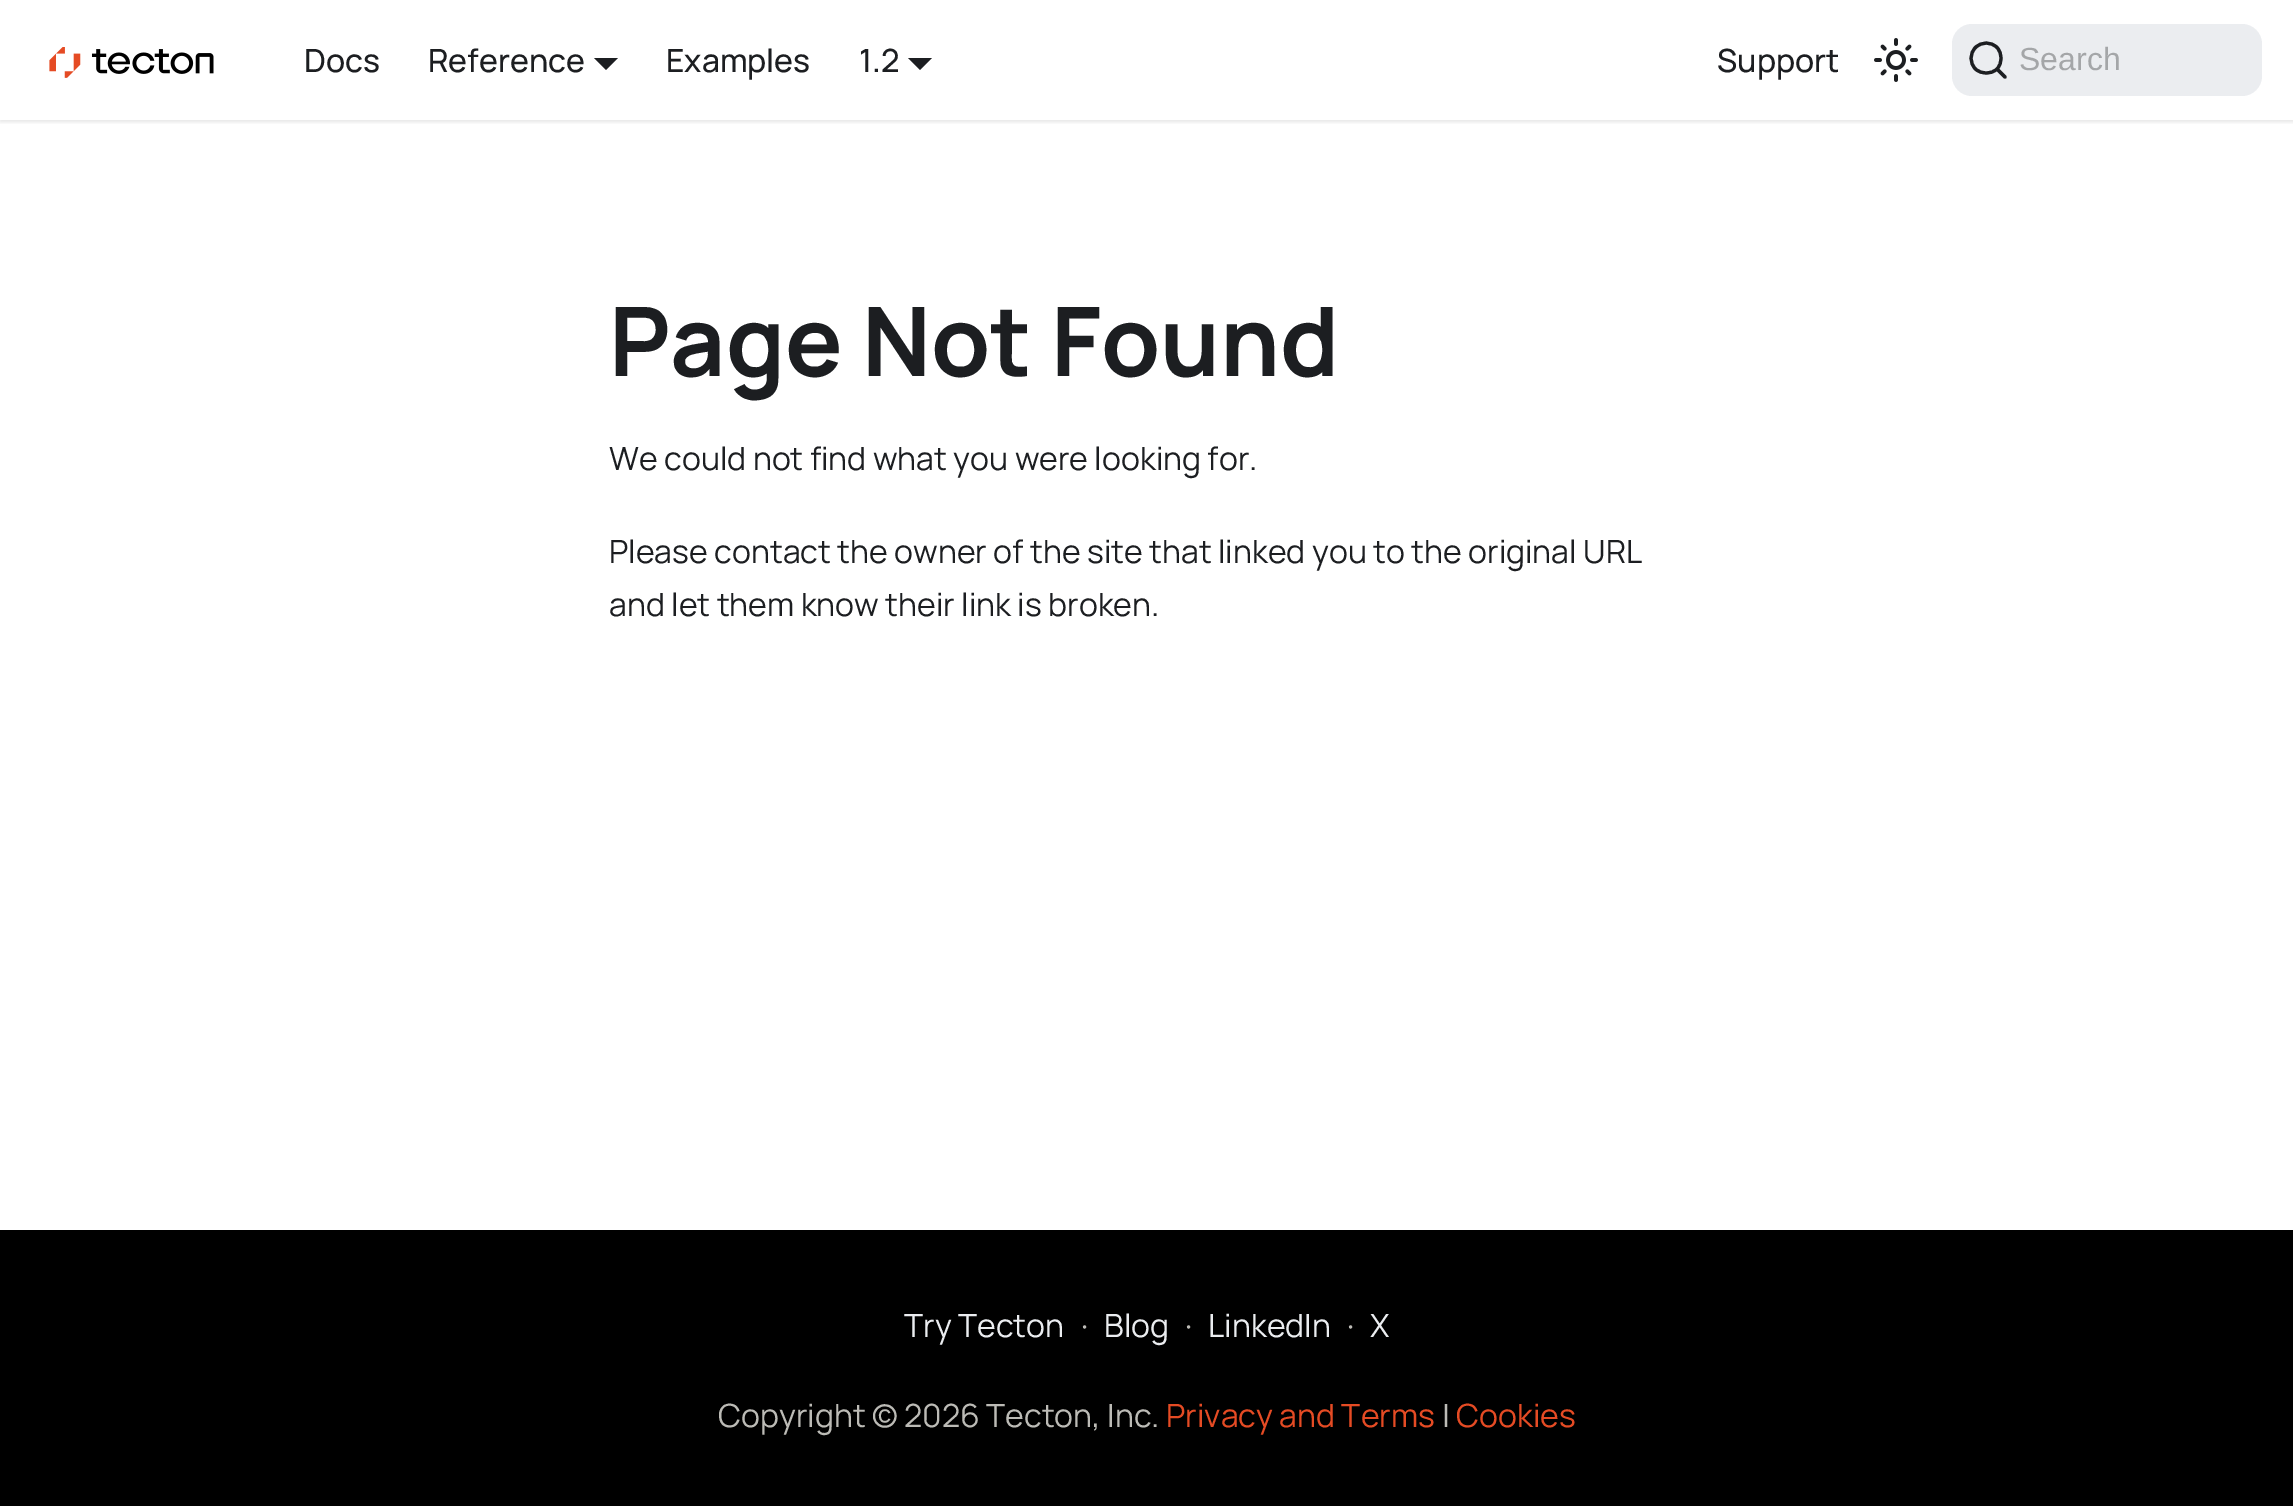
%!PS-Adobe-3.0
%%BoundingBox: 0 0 2293 1506
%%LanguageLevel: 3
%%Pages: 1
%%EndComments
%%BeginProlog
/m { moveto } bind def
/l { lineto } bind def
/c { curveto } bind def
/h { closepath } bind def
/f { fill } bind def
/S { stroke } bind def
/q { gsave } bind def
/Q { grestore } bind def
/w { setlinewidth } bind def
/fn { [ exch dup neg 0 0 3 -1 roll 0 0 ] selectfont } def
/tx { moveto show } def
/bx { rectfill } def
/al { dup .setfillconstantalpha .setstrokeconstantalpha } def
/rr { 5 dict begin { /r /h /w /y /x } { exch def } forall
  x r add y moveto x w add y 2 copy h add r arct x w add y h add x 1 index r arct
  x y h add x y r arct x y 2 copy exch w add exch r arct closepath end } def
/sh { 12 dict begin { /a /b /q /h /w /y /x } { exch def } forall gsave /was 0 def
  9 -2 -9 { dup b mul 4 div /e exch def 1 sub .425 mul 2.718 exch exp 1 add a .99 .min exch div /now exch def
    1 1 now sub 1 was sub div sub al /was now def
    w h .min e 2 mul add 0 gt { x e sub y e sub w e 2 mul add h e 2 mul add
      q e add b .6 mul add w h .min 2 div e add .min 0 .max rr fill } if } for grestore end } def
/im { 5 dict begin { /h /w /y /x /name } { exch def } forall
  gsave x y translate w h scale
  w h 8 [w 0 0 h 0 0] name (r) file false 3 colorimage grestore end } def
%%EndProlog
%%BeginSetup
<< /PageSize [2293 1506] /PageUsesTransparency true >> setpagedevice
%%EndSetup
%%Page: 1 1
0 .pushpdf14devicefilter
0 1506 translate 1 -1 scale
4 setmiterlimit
1 setgray
0 0 2293 1506 bx
q
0 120 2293 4 rectclip
0 setgray
0 2 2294 120 0 2 0.1 sh
Q
(image0.raw) 49 47 165 31 im
/Manrope-Medium 32 fn
0.11 0.118 0.129 setrgbcolor
(Docs) 304 72 tx
(Reference) 428 72 tx
594 58 m 618 58 l 606 70 l h f
(Examples) 666 72 tx
(1.2) 859 72 tx
908 58 m 932 58 l 920 70 l h f
(Support) 1717 72 tx
(image1.raw) 1874 38 44 44 im
0.922 0.929 0.941 setrgbcolor
1952 24 310 72 20 rr f
0.11 0.118 0.129 setrgbcolor
3.2 w
1 setlinecap
1 setlinejoin
1997 69 m 2005 77 l 1997 69 l 1991 74.5 1981.5 74.5 1975.5 69 c 1969.5 63 1969.5 53.5 1975.5 47.5 c 1981.5 41.5 1991 41.5 1997 47.5 c 2002.5 53.5 2002.5 63 1997 69 c h S
/LiberationSans-Regular 32 fn
0.643 0.651 0.659 setrgbcolor
(Search) 2019 70 tx
/Manrope-Bold 96 fn
0.11 0.118 0.129 setrgbcolor
(Page Not Found) 609 376 tx
/Manrope-Regular 32 fn
(We could not find what you were looking for.) 609 470 tx
(Please contact the owner of the site that linked you to the original URL) 609 563 tx
(and let them know their link is broken.) 609 616 tx
0 setgray
0 1230 2293 276 bx
0.922 0.929 0.941 setrgbcolor
(Try Tecton) 904 1337 tx
0.737 0.733 0.714 setrgbcolor
(·) 1081 1337 tx
0.922 0.929 0.941 setrgbcolor
(Blog) 1104 1337 tx
0.737 0.733 0.714 setrgbcolor
(·) 1185 1337 tx
0.922 0.929 0.941 setrgbcolor
(LinkedIn) 1208 1337 tx
0.737 0.733 0.714 setrgbcolor
(·) 1347 1337 tx
0.922 0.929 0.941 setrgbcolor
(X) 1370 1337 tx
0.737 0.733 0.714 setrgbcolor
(Copyright © 2026 Tecton, Inc.) 718 1427 tx
0.898 0.294 0.141 setrgbcolor
(Privacy and Terms) 1166 1427 tx
0.737 0.733 0.714 setrgbcolor
(|) 1442 1427 tx
0.898 0.294 0.141 setrgbcolor
(Cookies) 1456 1427 tx
.poppdf14devicefilter showpage
%%EOF
